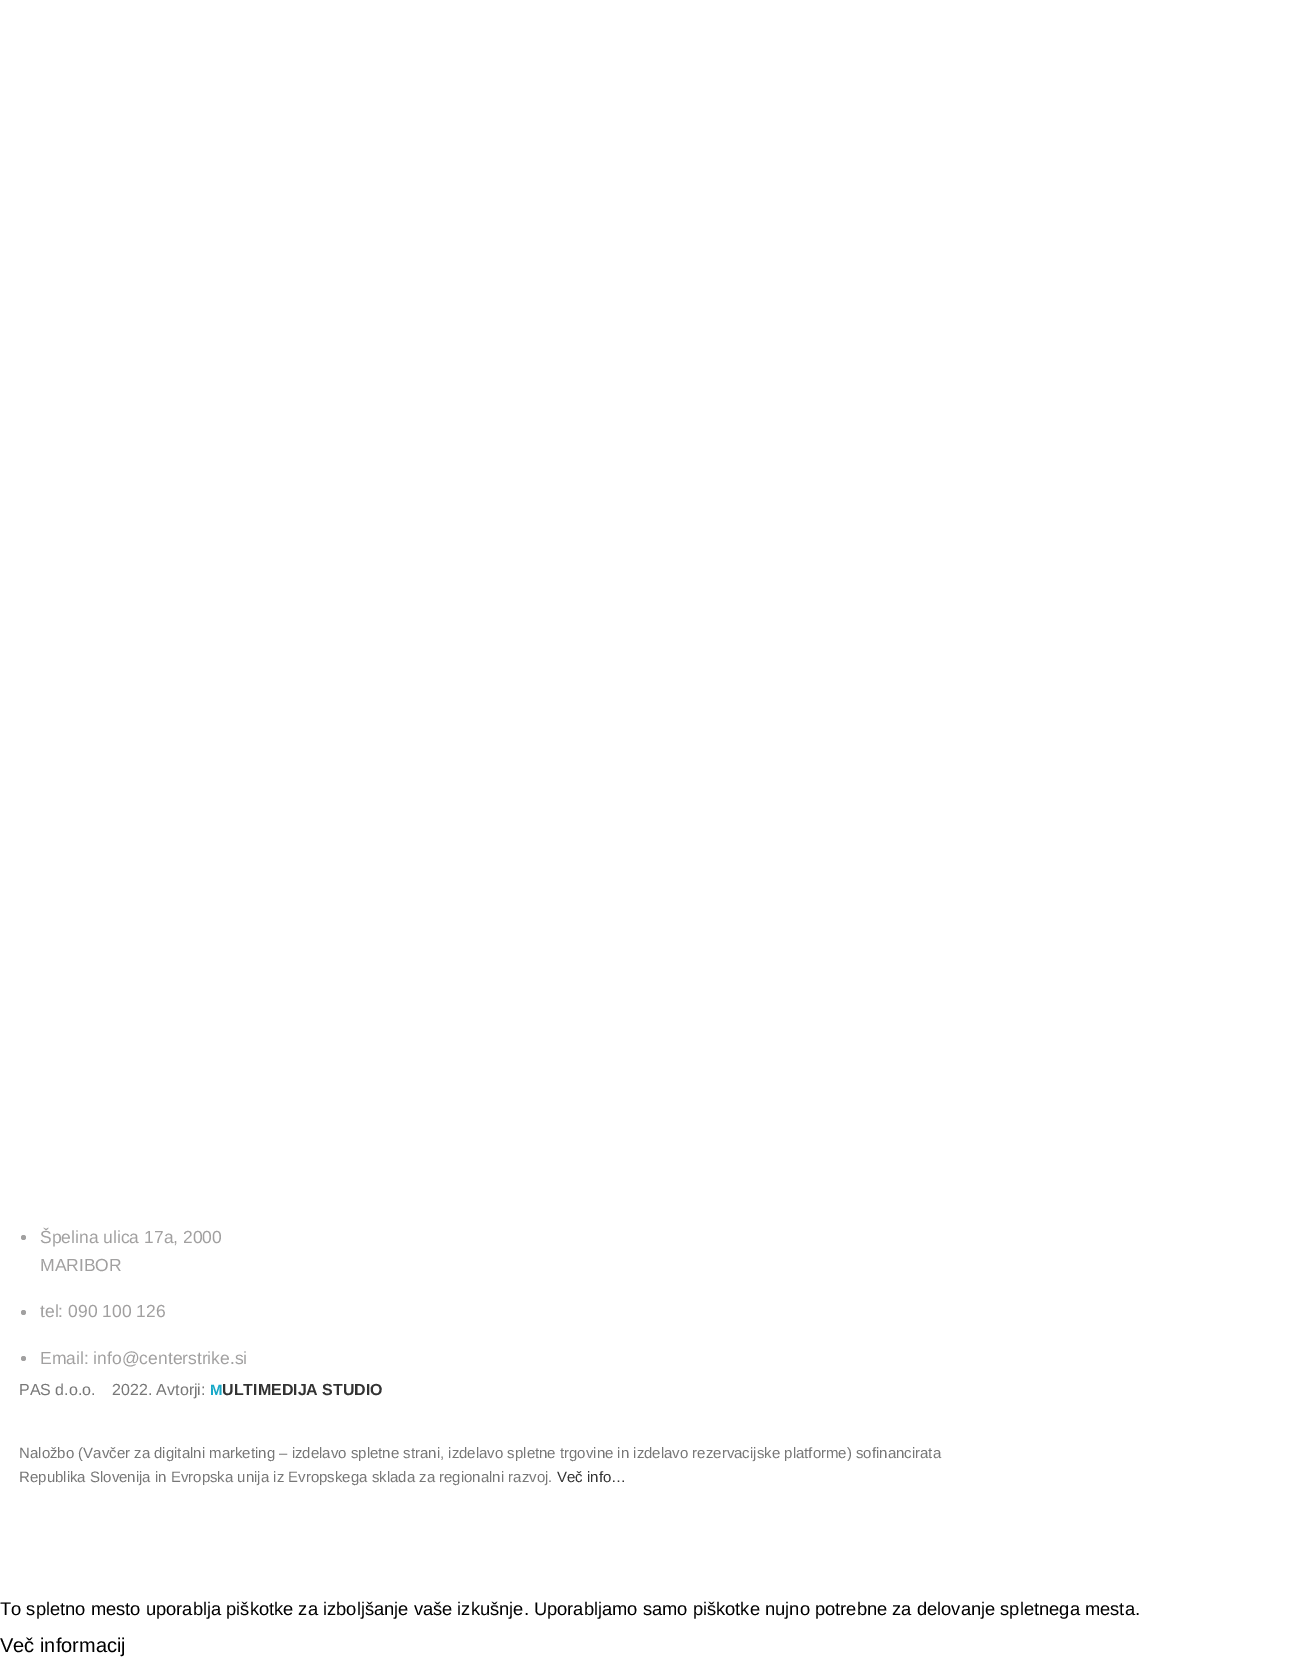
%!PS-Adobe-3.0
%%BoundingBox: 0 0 1306 1666
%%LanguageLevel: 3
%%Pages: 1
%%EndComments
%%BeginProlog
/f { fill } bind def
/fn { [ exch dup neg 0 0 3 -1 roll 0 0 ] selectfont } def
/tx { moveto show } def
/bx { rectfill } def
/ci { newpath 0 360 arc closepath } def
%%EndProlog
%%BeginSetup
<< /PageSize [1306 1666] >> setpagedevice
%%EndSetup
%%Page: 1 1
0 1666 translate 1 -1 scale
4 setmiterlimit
1 setgray
0 0 1306 1666 bx
0.631 0.627 0.627 setrgbcolor
23.5 1237.5 2.5 ci f
/LiberationSans-Regular 17.5 fn
(Špelina ulica 17a, 2000) 40 1243 tx
(MARIBOR) 40 1271 tx
23.5 1312.5 2.5 ci f
(tel: 090 100 126) 40 1317 tx
23.5 1358.5 2.5 ci f
(Email: info@centerstrike.si) 40 1364 tx
/LiberationSans-Regular 16 fn
0.467 setgray
(PAS d.o.o.) 19 1395 tx
(2022. Avtorji:) 112 1395 tx
/LiberationSans-Bold 15 fn
0.09 0.659 0.78 setrgbcolor
(M) 210 1395 tx
/LiberationSans-Bold 16 fn
0.2 setgray
(ULTIMEDIJA STUDIO) 222 1395 tx
/LiberationSans-Regular 15 fn
0.467 setgray
(Naložbo \(Vavčer za digitalni marketing – izdelavo spletne strani, izdelavo spletne trgovine in izdelavo rezervacijske platforme\) sofinancirata) 19 1458 tx
(Republika Slovenija in Evropska unija iz Evropskega sklada za regionalni razvoj.) 19 1482 tx
0.2 setgray
(Več info…) 557 1482 tx
/LiberationSans-Regular 18.33 fn
0 setgray
(To spletno mesto uporablja piškotke za izboljšanje vaše izkušnje. Uporabljamo samo piškotke nujno potrebne za delovanje spletnega mesta.) 0 1615 tx
/LiberationSans-Regular 20 fn
(Več informacij) 0 1652 tx
showpage
%%EOF
